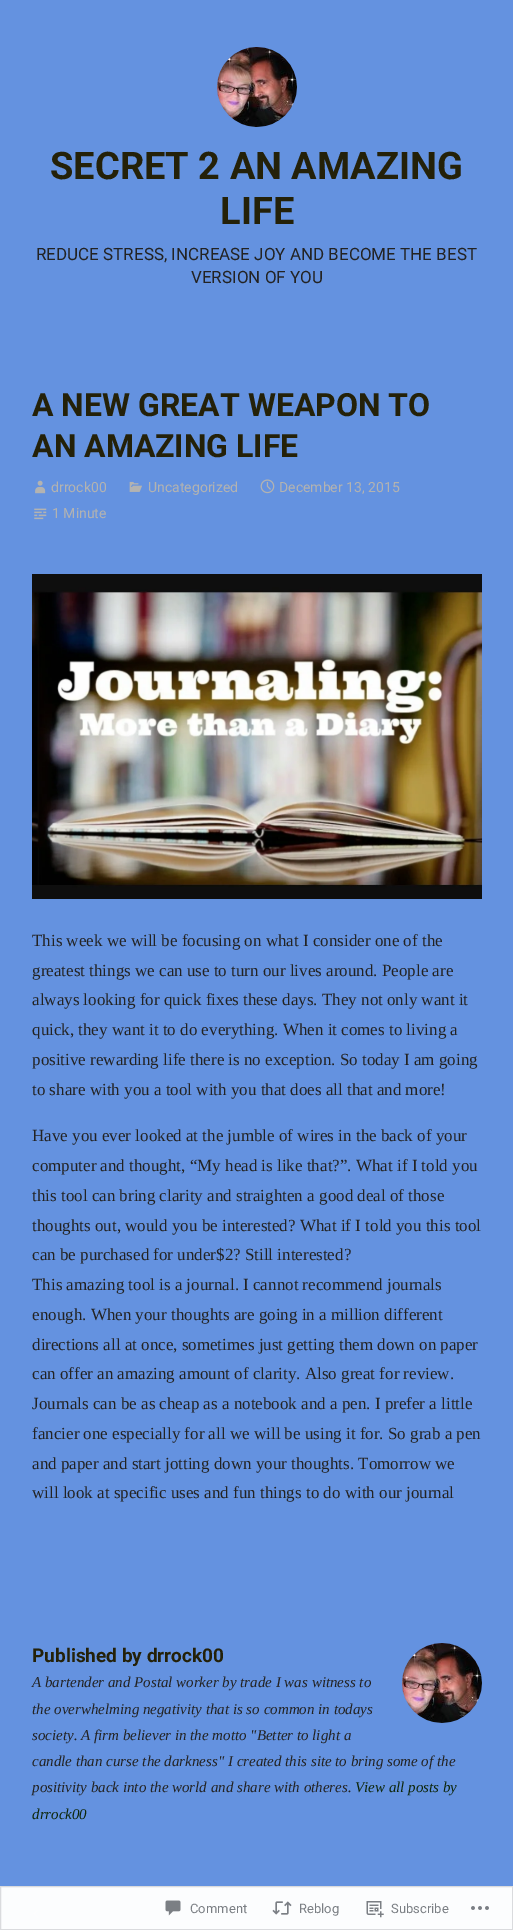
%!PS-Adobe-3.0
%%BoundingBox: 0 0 513 1930
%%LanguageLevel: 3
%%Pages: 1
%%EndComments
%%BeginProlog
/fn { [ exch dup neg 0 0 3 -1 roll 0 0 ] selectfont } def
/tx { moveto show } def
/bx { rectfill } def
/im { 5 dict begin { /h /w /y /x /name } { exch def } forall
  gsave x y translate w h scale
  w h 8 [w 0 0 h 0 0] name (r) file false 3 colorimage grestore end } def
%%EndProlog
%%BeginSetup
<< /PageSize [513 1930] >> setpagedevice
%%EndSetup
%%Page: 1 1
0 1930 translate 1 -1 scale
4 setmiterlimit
0.392 0.573 0.878 setrgbcolor
0 0 513 1930 bx
0.988 0.992 0.996 setrgbcolor
1 1887 511 42 bx
(image0.raw) 217 47 80 80 im
/Roboto-Bold 38 fn
0.141 0.129 0.035 setrgbcolor
(SECRET 2 AN AMAZING) 50 179 tx
(LIFE) 220 224 tx
/Roboto-Regular 17 fn
0.137 setgray
(REDUCE STRESS, INCREASE JOY AND BECOME THE BEST) 36 260 tx
(VERSION OF YOU) 191 283 tx
/Roboto-Bold 32 fn
0.141 0.129 0.035 setrgbcolor
(A NEW GREAT WEAPON TO) 32 416 tx
(AN AMAZING LIFE) 32 457 tx
(image1.raw) 35 480 11 14 im
/Roboto-Regular 14 fn
0.702 0.702 0.694 setrgbcolor
(drrock00) 51 492 tx
(image2.raw) 129 481 13 11 im
(Uncategorized) 148 492 tx
(image3.raw) 260 479 15 15 im
(December 13, 2015) 279 492 tx
(image4.raw) 34 508 13 12 im
(1 Minute) 52 518 tx
(image5.raw) 32 574 450 325 im
/LiberationSerif-Regular 17 fn
0.137 setgray
(This week we will be focusing on what I consider one of the) 32 946 tx
(greatest things we can use to turn our lives around. People are) 32 976 tx
(always looking for quick fixes these days. They not only want it) 32 1005 tx
(quick, they want it to do everything. When it comes to living a) 32 1035 tx
(positive rewarding life there is no exception. So today I am going) 32 1065 tx
(to share with you a tool with you that does all that and more!) 32 1095 tx
(Have you ever looked at the jumble of wires in the back of your) 32 1141 tx
(computer and thought, “My head is like that?”. What if I told you) 32 1171 tx
(this tool can bring clarity and straighten a good deal of those) 32 1201 tx
(thoughts out, would you be interested? What if I told you this tool) 32 1231 tx
(can be purchased for under$2? Still interested?) 32 1260 tx
(This amazing tool is a journal. I cannot recommend journals) 32 1290 tx
(enough. When your thoughts are going in a million different) 32 1320 tx
(directions all at once, sometimes just getting them down on paper) 32 1350 tx
(can offer an amazing amount of clarity. Also great for review.) 32 1379 tx
(Journals can be as cheap as a notebook and a pen. I prefer a little) 32 1409 tx
(fancier one especially for all we will be using it for. So grab a pen) 32 1439 tx
(and paper and start jotting down your thoughts. Tomorrow we) 32 1469 tx
(will look at specific uses and fun things to do with our journal) 32 1498 tx
/Roboto-Bold 19 fn
0.141 0.129 0.035 setrgbcolor
(Published by drrock00) 32 1662 tx
(image6.raw) 402 1643 80 80 im
/LiberationSerif-Italic 15 fn
0.137 setgray
(A bartender and Postal worker by trade I was witness to) 32 1687 tx
(the overwhelming negativity that is so common in todays) 32 1714 tx
(society. A firm believer in the motto "Better to light a) 32 1740 tx
(candle than curse the darkness" I created this site to bring some of the) 32 1766 tx
(positivity back into the world and share with otheres.) 32 1792 tx
0.055 0.153 0.043 setrgbcolor
(View all posts by) 355 1792 tx
(drrock00) 32 1819 tx
(image7.raw) 33 1909 6 9 im
0.855 0.859 0.871 setrgbcolor
0.5 1886.5 512 43 rectstroke
(image8.raw) 165 1900 16 16 im
/Roboto-Regular 13 fn
0.482 0.498 0.518 setrgbcolor
(Comment) 190 1913 tx
(image9.raw) 272 1901 20 14 im
(Reblog) 299 1913 tx
(image10.raw) 366 1901 18 17 im
(Subscribe) 391 1913 tx
(image11.raw) 471 1906 18 4 im
showpage
%%EOF
